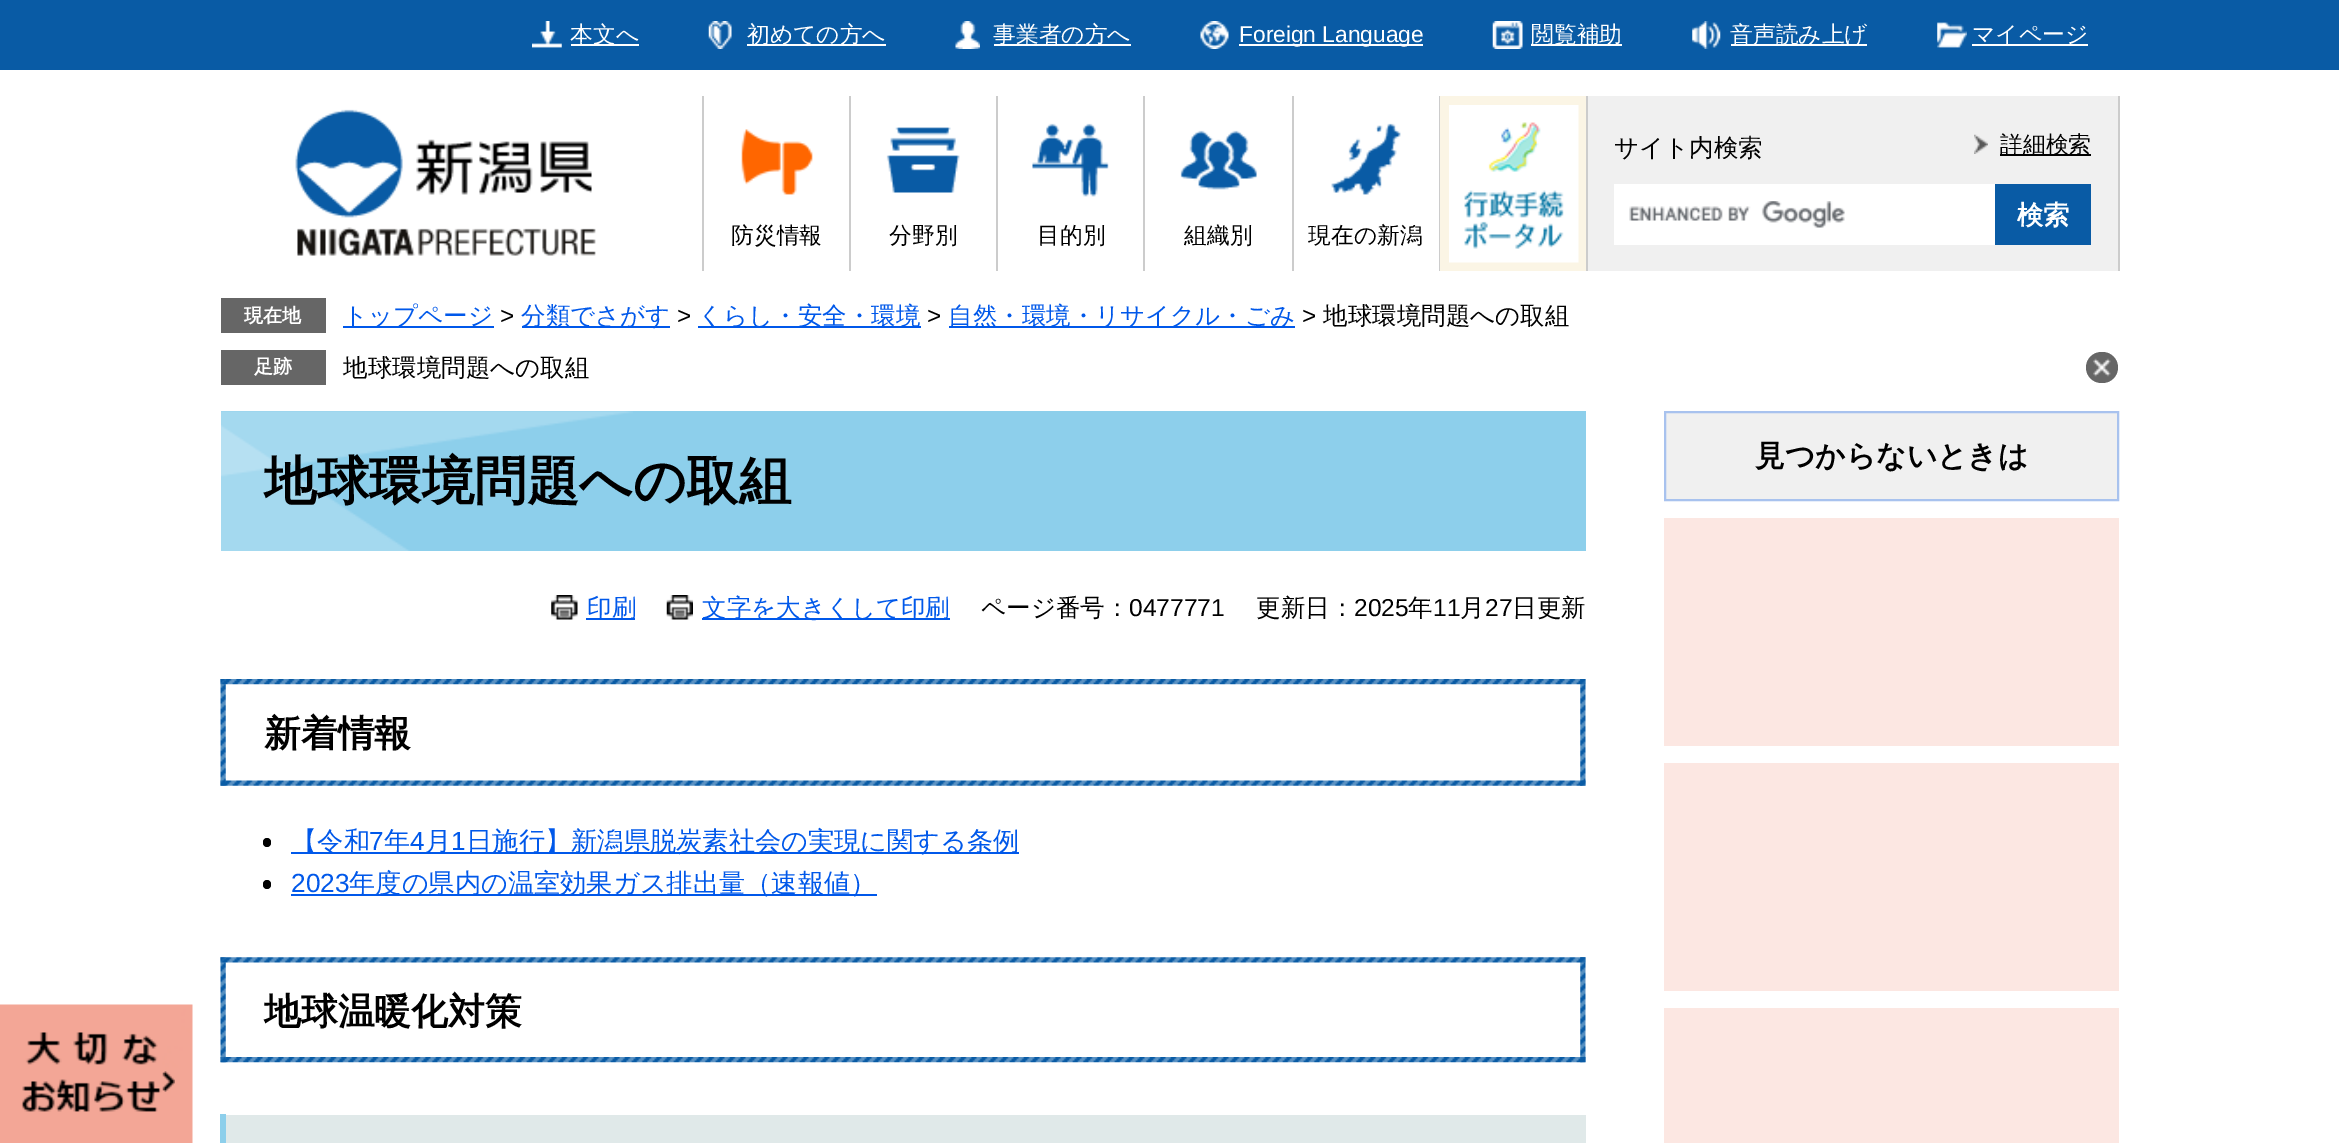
%!PS-Adobe-3.0
%%BoundingBox: 0 0 2339 1143
%%LanguageLevel: 3
%%Pages: 1
%%EndComments
%%BeginProlog
/m { moveto } bind def
/l { lineto } bind def
/h { closepath } bind def
/f { fill } bind def
/S { stroke } bind def
/q { gsave } bind def
/Q { grestore } bind def
/w { setlinewidth } bind def
/fn { [ exch dup neg 0 0 3 -1 roll 0 0 ] selectfont } def
/tx { moveto show } def
/bx { rectfill } def
/rr { 5 dict begin { /r /h /w /y /x } { exch def } forall
  x r add y moveto x w add y 2 copy h add r arct x w add y h add x 1 index r arct
  x y h add x y r arct x y 2 copy exch w add exch r arct closepath end } def
/im { 5 dict begin { /h /w /y /x /name } { exch def } forall
  gsave x y translate w h scale
  w h 8 [w 0 0 h 0 0] name (r) file false 3 colorimage grestore end } def
%%EndProlog
%%BeginSetup
<< /PageSize [2339 1143] >> setpagedevice
%%EndSetup
%%Page: 1 1
0 1143 translate 1 -1 scale
4 setmiterlimit
1 setgray
0 0 2339 1143 bx
0.035 0.357 0.647 setrgbcolor
0 0 2339 70 bx
(image0.raw) 532 21 30 27 im
1 setgray
571 44 68 2 bx
/WenQuanYiZenHei-Medium 22.75 fn
(本文へ) 570 42 tx
(image1.raw) 708 21 24 28 im
747 44 139 2 bx
(初めての方へ) 747 42 tx
(image2.raw) 955 21 25 28 im
994 44 137 2 bx
(事業者の方へ) 993 42 tx
(image3.raw) 1200 21 29 28 im
1239 44 184 2 bx
/LiberationSans-Regular 22.75 fn
(Foreign Language) 1239 42 tx
(image4.raw) 1492 21 31 28 im
1531 44 91 2 bx
/WenQuanYiZenHei-Medium 22.75 fn
(閲覧補助) 1531 42 tx
(image5.raw) 1692 21 29 28 im
1731 44 136 2 bx
(音声読み上げ) 1730 42 tx
(image6.raw) 1937 22 30 26 im
1972 44 116 2 bx
(マイページ) 1972 42 tx
(image7.raw) 295 109 301 147 im
0.941 setgray
1588 96 530 175 bx
0.8 setgray
2118 96 2 175 bx
1586 96 2 175 bx
(image8.raw) 1974 134 14 20 im
0 setgray
2000 154 91 2 bx
(詳細検索) 2000 152 tx
/WenQuanYiZenHei-Medium 24.5 fn
(サイト内検索) 1614 156 tx
1 setgray
1614 184 381 61 bx
(image9.raw) 1629 201 216 27 im
0.035 0.357 0.647 setrgbcolor
1995 184 96 61 bx
/WenQuanYiZenHei-Bold 26.25 fn
1 setgray
(検索) 2017 224 tx
0.8 setgray
702 96 2 175 bx
(image10.raw) 741 129 72 66 im
/WenQuanYiZenHei-Medium 22.75 fn
0 setgray
(防災情報) 731 243 tx
0.8 setgray
849 96 2 175 bx
(image11.raw) 886 127 74 66 im
0 setgray
(分野別) 889 243 tx
0.8 setgray
996 96 2 175 bx
(image12.raw) 1032 123 77 74 im
0 setgray
(目的別) 1037 243 tx
0.8 setgray
1143 96 2 175 bx
(image13.raw) 1180 130 77 60 im
0 setgray
(組織別) 1184 243 tx
0.8 setgray
1292 96 2 175 bx
(image14.raw) 1331 123 70 72 im
0 setgray
(現在の新潟) 1308 243 tx
0.8 setgray
1439 96 1 175 bx
0.984 0.961 0.898 setrgbcolor
1440 96 146 175 bx
(image15.raw) 1449 105 130 158 im
0.4 setgray
221 298 105 35 bx
/WenQuanYiZenHei-Bold 19 fn
1 setgray
(現在地) 244 322 tx
0 0.345 0.918 setrgbcolor
343 326 151 2 bx
/WenQuanYiZenHei-Medium 24.5 fn
(トップページ) 343 324 tx
/LiberationSans-Regular 24.5 fn
0 setgray
(>) 500 324 tx
0 0.345 0.918 setrgbcolor
522 326 148 2 bx
/WenQuanYiZenHei-Medium 24.5 fn
(分類でさがす) 521 324 tx
/LiberationSans-Regular 24.5 fn
0 setgray
(>) 677 324 tx
0 0.345 0.918 setrgbcolor
698 326 223 2 bx
/WenQuanYiZenHei-Medium 24.5 fn
(くらし・安全・環境) 698 324 tx
/LiberationSans-Regular 24.5 fn
0 setgray
(>) 927 324 tx
0 0.345 0.918 setrgbcolor
949 326 346 2 bx
/WenQuanYiZenHei-Medium 24.5 fn
(自然・環境・リサイクル・ごみ) 948 324 tx
/LiberationSans-Regular 24.5 fn
0 setgray
(>) 1302 324 tx
/WenQuanYiZenHei-Medium 24.5 fn
(地球環境問題への取組) 1323 324 tx
0.4 setgray
221 350 105 35 bx
/WenQuanYiZenHei-Bold 19 fn
1 setgray
(足跡) 254 373 tx
/WenQuanYiZenHei-Medium 24.5 fn
0 setgray
(地球環境問題への取組) 343 376 tx
0.4 setgray
2086 352 32 31 15.5 rr f
(image16.raw) 2093 358 18 19 im
0.553 0.812 0.922 setrgbcolor
221 411 1365 140 bx
(image17.raw) 221 411 412 140 im
/WenQuanYiZenHei-Bold 52.5 fn
0 setgray
(地球環境問題への取組) 264 499 tx
(image18.raw) 551 595 27 25 im
0 0.345 0.918 setrgbcolor
586 618 49 2 bx
/WenQuanYiZenHei-Medium 24.5 fn
(印刷) 587 616 tx
(image19.raw) 666 595 27 25 im
702 618 248 2 bx
(文字を大きくして印刷) 702 616 tx
0 setgray
(ページ番号：) 981 616 tx
/LiberationSans-Regular 24.5 fn
(0477771) 1129 616 tx
/WenQuanYiZenHei-Medium 24.5 fn
(更新日：) 1256 616 tx
/LiberationSans-Regular 24.5 fn
(2025) 1354 616 tx
/WenQuanYiZenHei-Medium 24.5 fn
(年) 1408 616 tx
/LiberationSans-Regular 24.5 fn
(11) 1433 616 tx
/WenQuanYiZenHei-Medium 24.5 fn
(月) 1460 616 tx
/LiberationSans-Regular 24.5 fn
(27) 1485 616 tx
/WenQuanYiZenHei-Medium 24.5 fn
(日更新) 1512 616 tx
(image20.raw) 220 679 1366 107 im
/WenQuanYiZenHei-Bold 36.75 fn
(新着情報) 264 746 tx
263 838 8 9 4 rr f
0 0.345 0.918 setrgbcolor
291 852 728 2 bx
/WenQuanYiZenHei-Medium 26.25 fn
(【令和) 291 850 tx
/LiberationSans-Regular 26.25 fn
(7) 369 850 tx
/WenQuanYiZenHei-Medium 26.25 fn
(年) 384 850 tx
/LiberationSans-Regular 26.25 fn
(4) 410 850 tx
/WenQuanYiZenHei-Medium 26.25 fn
(月) 425 850 tx
/LiberationSans-Regular 26.25 fn
(1) 451 850 tx
/WenQuanYiZenHei-Medium 26.25 fn
(日施行】新潟県脱炭素社会の実現に関する条例) 466 850 tx
0 setgray
263 880 8 9 4 rr f
/LiberationSans-Regular 26.25 fn
0 0.345 0.918 setrgbcolor
(2023) 291 892 tx
291 894 586 2 bx
/WenQuanYiZenHei-Medium 26.25 fn
(年度の県内の温室効果ガス排出量（速報値）) 349 892 tx
(image21.raw) 220 957 1366 106 im
/WenQuanYiZenHei-Bold 36.75 fn
0 setgray
(地球温暖化対策) 264 1024 tx
0.878 0.914 0.914 setrgbcolor
226 1115 1360 28 bx
0.553 0.812 0.922 setrgbcolor
220 1114 6 29 bx
0.941 setgray
1665 412 m 2118 412 l 2118 500 l 1665 500 l h q f Q
0.659 0.761 0.933 setrgbcolor
2 w
S
/WenQuanYiZenHei-Bold 29.75 fn
0 setgray
(見つからないときは) 1755 466 tx
0.988 0.906 0.886 setrgbcolor
1664 518 455 228 bx
1664 763 455 228 bx
1664 1008 455 135 bx
(image22.raw) 0 1004 193 139 im
(image23.raw) 162 1071 13 21 im
showpage
%%EOF
